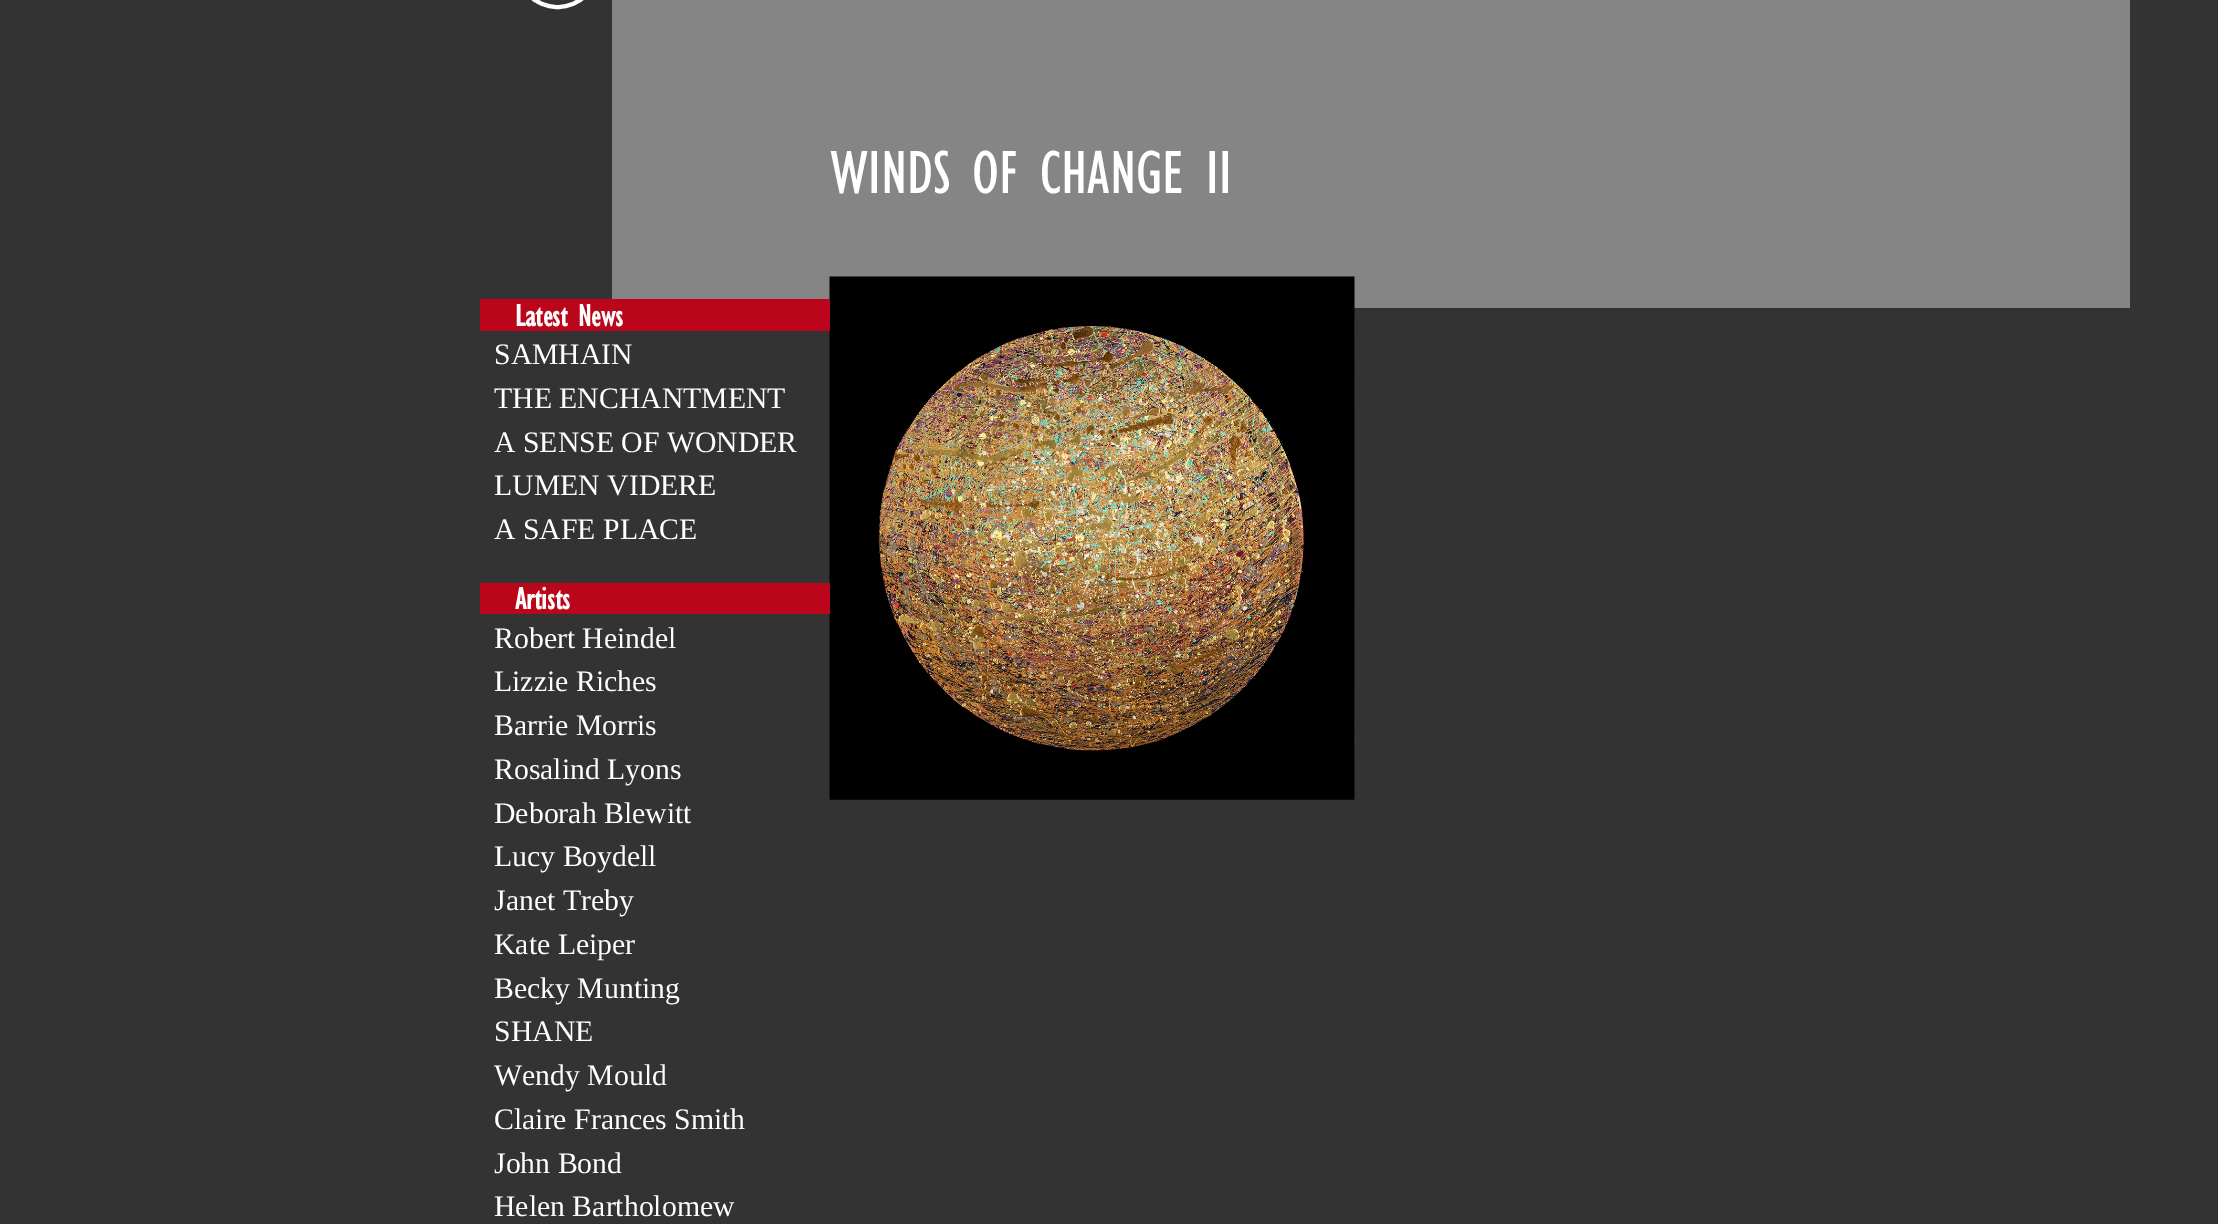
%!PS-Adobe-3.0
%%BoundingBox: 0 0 2218 1224
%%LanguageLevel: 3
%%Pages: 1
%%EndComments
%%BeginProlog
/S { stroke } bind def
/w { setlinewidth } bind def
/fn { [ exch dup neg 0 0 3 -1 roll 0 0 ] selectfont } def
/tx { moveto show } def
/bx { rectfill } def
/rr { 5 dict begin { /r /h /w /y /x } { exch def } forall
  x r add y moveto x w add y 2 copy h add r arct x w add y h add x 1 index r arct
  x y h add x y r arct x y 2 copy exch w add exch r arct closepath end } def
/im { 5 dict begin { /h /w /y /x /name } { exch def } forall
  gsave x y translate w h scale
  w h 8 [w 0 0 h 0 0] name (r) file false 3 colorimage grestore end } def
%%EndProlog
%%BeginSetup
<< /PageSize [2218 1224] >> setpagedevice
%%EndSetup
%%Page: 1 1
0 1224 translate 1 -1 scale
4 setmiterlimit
0.2 setgray
0 0 2218 1224 bx
1 setgray
4 w
517 -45 81 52 40.5 rr S
0.525 0.522 0.522 setrgbcolor
612 0 1518 308 bx
/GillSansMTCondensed-Regular 63 fn
1 setgray
(WINDS OF CHANGE II) 830 193 tx
(image0.raw) 829 276 526 524 im
0.733 0.02 0.102 setrgbcolor
480 299 350 32 bx
/GillSansMTCondensed-Bold 31.5 fn
1 setgray
(Latest News) 515 326 tx
/LiberationSerif-Regular 29.75 fn
(SAMHAIN) 494 364 tx
(THE ENCHANTMENT) 494 408 tx
(A SENSE OF WONDER) 494 452 tx
(LUMEN VIDERE) 494 495 tx
(A SAFE PLACE) 494 539 tx
0.733 0.02 0.102 setrgbcolor
480 583 350 31 bx
/GillSansMTCondensed-Bold 31.5 fn
1 setgray
(Artists) 515 609 tx
/LiberationSerif-Regular 29.75 fn
(Robert Heindel) 494 648 tx
(Lizzie Riches) 494 691 tx
(Barrie Morris) 494 735 tx
(Rosalind Lyons) 494 779 tx
(Deborah Blewitt) 494 823 tx
(Lucy Boydell) 494 866 tx
(Janet Treby) 494 910 tx
(Kate Leiper) 494 954 tx
(Becky Munting) 494 998 tx
(SHANE) 494 1041 tx
(Wendy Mould) 494 1085 tx
(Claire Frances Smith) 494 1129 tx
(John Bond) 494 1173 tx
(Helen Bartholomew) 494 1216 tx
showpage
%%EOF
